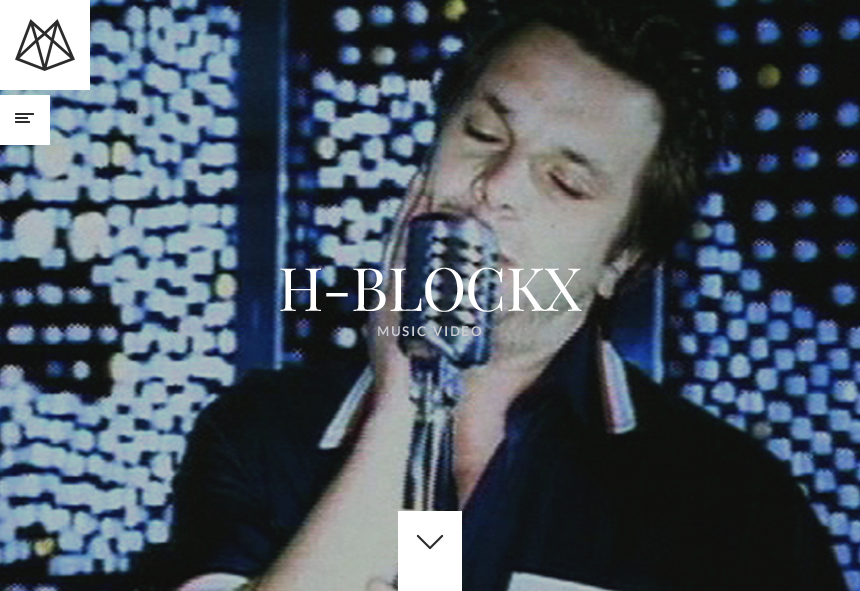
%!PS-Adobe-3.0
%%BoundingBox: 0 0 860 591
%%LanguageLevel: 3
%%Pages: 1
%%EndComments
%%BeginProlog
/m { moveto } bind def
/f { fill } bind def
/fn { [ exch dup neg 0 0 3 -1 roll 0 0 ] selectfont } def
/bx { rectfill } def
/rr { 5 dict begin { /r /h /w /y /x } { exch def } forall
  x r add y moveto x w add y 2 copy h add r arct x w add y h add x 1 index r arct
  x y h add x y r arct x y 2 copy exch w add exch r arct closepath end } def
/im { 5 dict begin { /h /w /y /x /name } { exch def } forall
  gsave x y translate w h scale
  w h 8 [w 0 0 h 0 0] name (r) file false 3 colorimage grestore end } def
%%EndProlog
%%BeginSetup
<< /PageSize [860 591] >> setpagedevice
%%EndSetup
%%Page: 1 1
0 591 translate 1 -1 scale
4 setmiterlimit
1 setgray
0 0 860 591 bx
(image1.raw) 0 0 860 591 im
0 0 90 90 bx
(image0.raw) 15 19 60 52 im
0 95 50 50 bx
0.169 setgray
15 113 19 2 1 rr f
15 117 13 2 1 rr f
15 121 15 2 1 rr f
/PlayfairDisplay-Regular 60 fn
1 setgray
278 311 m -1 0 (H-BLOCKX) ashow
/Lato-Bold 13 fn
0.8 0.808 0.827 setrgbcolor
377 336 m 2 0 (MUSIC VIDEO) ashow
1 setgray
398 511 64 80 bx
(image2.raw) 416 534 28 16 im
showpage
%%EOF
